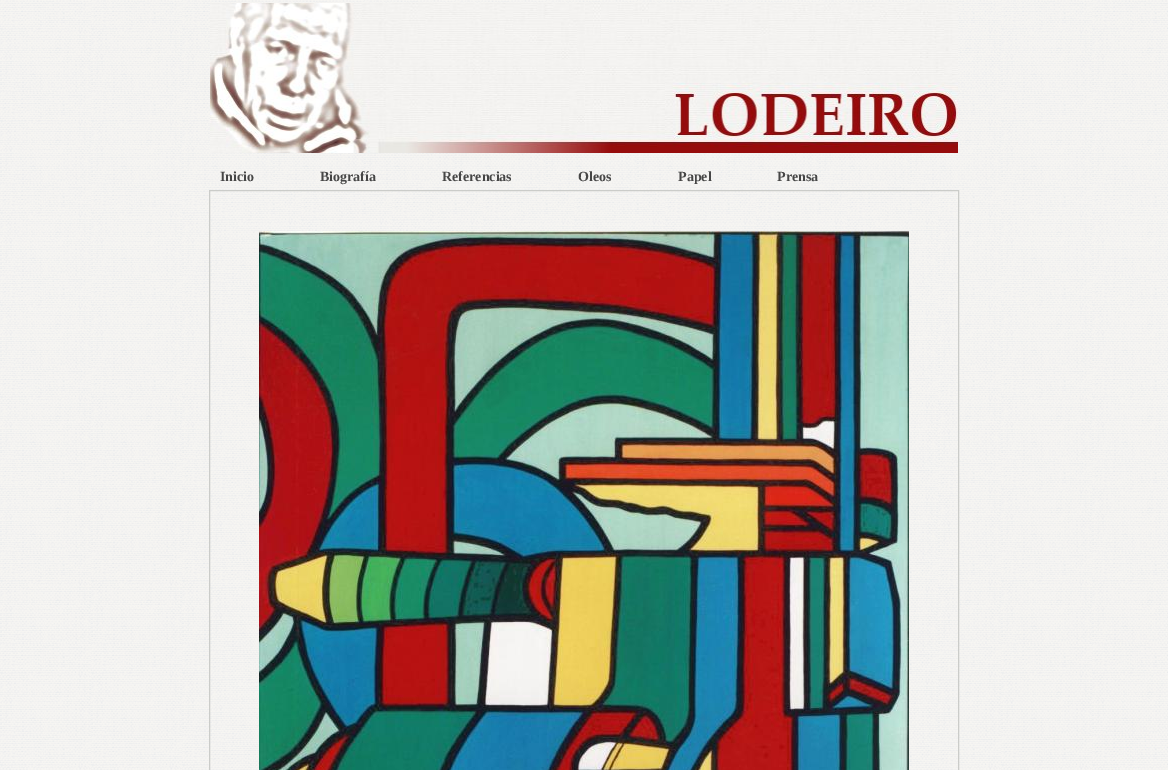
%!PS-Adobe-3.0
%%BoundingBox: 0 0 1168 770
%%LanguageLevel: 3
%%Pages: 1
%%EndComments
%%BeginProlog
/fn { [ exch dup neg 0 0 3 -1 roll 0 0 ] selectfont } def
/tx { moveto show } def
/bx { rectfill } def
/im { 5 dict begin { /h /w /y /x /name } { exch def } forall
  gsave x y translate w h scale
  w h 8 [w 0 0 h 0 0] name (r) file false 3 colorimage grestore end } def
%%EndProlog
%%BeginSetup
<< /PageSize [1168 770] >> setpagedevice
%%EndSetup
%%Page: 1 1
0 770 translate 1 -1 scale
4 setmiterlimit
1 setgray
0 0 1168 770 bx
(image0.raw) 0 0 1168 770 im
(image1.raw) 210 3 748 150 im
/LiberationSerif-Bold 14 fn
0.275 setgray
(Inicio) 220 181 tx
(Biografía) 320 181 tx
(Referencias) 442 181 tx
(Oleos) 578 181 tx
(Papel) 678 181 tx
(Prensa) 777 181 tx
(image2.raw) 210 191 748 579 im
0.796 0.8 0.788 setrgbcolor
209.5 190.5 749 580 rectstroke
(image3.raw) 259 231 650 539 im
showpage
%%EOF
